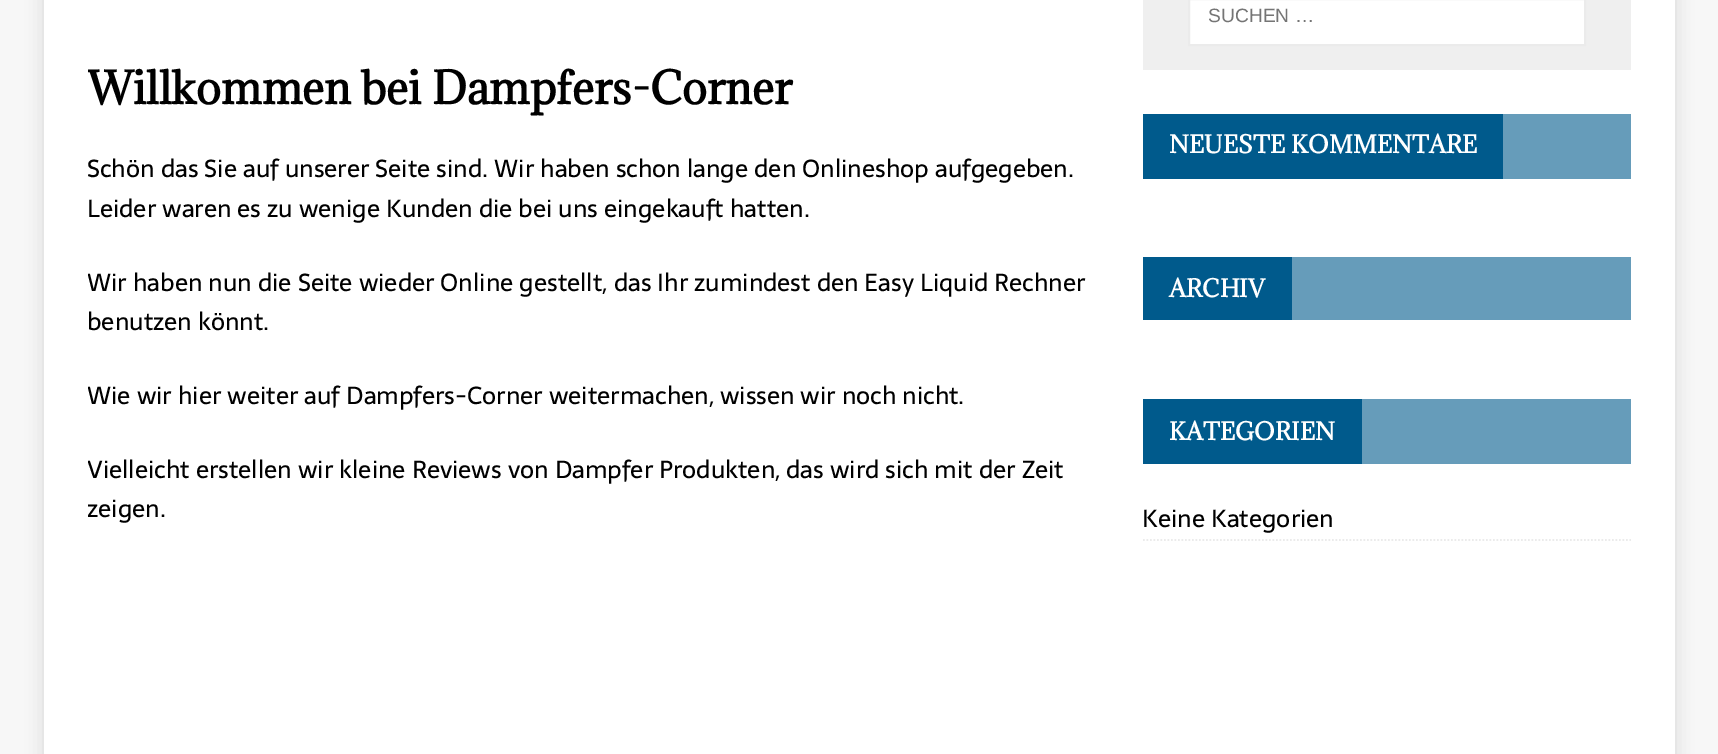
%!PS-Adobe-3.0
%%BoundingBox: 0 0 1718 754
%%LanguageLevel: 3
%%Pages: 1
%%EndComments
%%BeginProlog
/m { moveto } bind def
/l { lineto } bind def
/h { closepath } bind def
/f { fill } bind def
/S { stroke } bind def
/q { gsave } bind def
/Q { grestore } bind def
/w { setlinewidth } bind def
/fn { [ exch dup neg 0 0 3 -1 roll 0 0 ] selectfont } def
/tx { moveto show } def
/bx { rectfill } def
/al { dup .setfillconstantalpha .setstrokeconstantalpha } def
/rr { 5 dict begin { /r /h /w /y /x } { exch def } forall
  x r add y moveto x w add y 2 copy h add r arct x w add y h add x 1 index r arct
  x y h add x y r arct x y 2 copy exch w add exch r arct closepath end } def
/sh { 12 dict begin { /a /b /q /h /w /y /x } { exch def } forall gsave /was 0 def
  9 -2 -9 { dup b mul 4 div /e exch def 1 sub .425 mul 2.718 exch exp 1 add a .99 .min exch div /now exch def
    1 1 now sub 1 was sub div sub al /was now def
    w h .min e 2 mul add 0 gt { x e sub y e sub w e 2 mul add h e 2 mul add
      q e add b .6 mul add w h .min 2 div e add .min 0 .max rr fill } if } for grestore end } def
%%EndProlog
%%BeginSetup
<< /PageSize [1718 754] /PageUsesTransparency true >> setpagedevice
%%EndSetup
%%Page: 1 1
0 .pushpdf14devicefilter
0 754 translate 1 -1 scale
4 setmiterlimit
0.969 setgray
0 0 1718 754 bx
0.196 setgray
44 -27 1631 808 0 9 0.17 sh
1 setgray
44 0 1631 754 bx
q
88 0 1016 732 rectclip
/Adamina-Bold 42 fn
0 setgray
(Willkommen bei Dampfers-Corner) 87 104 tx
Q
/Sarala-Regular 24.5 fn
0 setgray
(Schön das Sie auf unserer Seite sind. Wir haben schon lange den Onlineshop aufgegeben.) 87 177 tx
(Leider waren es zu wenige Kunden die bei uns eingekauft hatten.) 87 217 tx
q
88 0 1016 732 rectclip
(Wir haben nun die Seite wieder Online gestellt, das Ihr zumindest den Easy Liquid Rechner) 87 291 tx
Q
(benutzen könnt.) 87 330 tx
q
88 0 1016 732 rectclip
(Wie wir hier weiter auf Dampfers-Corner weitermachen, wissen wir noch nicht.) 87 404 tx
(Vielleicht erstellen wir kleine Reviews von Dampfer Produkten, das wird sich mit der Zeit) 87 478 tx
(zeigen.) 87 517 tx
Q
0.937 setgray
1143 0 488 70 bx
1 setgray
1189 -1 m 1585 -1 l 1585 45 l 1189 45 l h q f Q
0.922 setgray
2 w
S
/LiberationSans-Regular 19.25 fn
0.459 setgray
(SUCHEN …) 1208 22 tx
0.4 0.612 0.729 setrgbcolor
1503 114 128 65 bx
0 0.353 0.549 setrgbcolor
1143 114 360 65 bx
/Adamina-Bold 22.75 fn
1 setgray
(NEUESTE KOMMENTARE) 1169 153 tx
0.4 0.612 0.729 setrgbcolor
1292 257 339 63 bx
0 0.353 0.549 setrgbcolor
1143 257 149 63 bx
1 setgray
(ARCHIV) 1169 297 tx
0.4 0.612 0.729 setrgbcolor
1362 399 269 65 bx
0 0.353 0.549 setrgbcolor
1143 399 219 65 bx
1 setgray
(KATEGORIEN) 1169 440 tx
0.922 setgray
1.8 w
[1.75 1.75] 0 setdash
1143 540 m 1631 540 l S
/Sarala-Regular 24.5 fn
0 setgray
(Keine Kategorien) 1142 527 tx
.poppdf14devicefilter showpage
%%EOF
